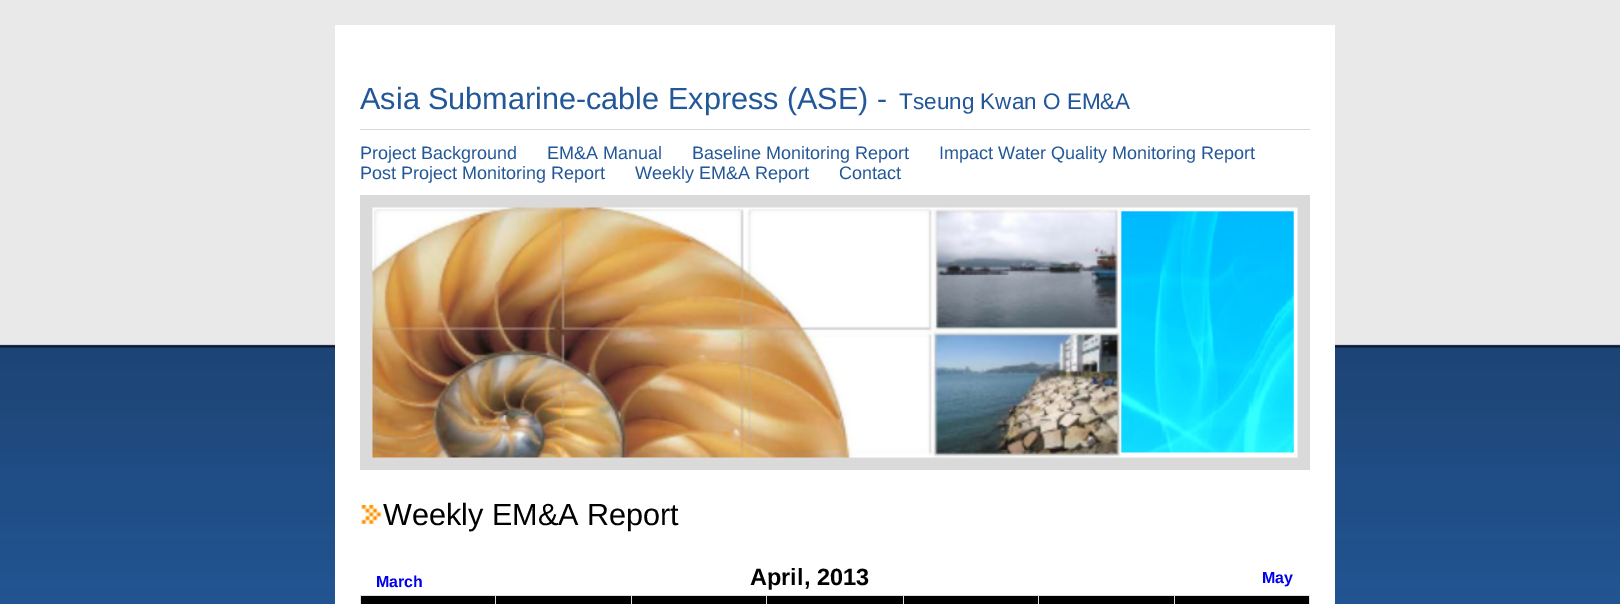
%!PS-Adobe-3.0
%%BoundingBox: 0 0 1620 604
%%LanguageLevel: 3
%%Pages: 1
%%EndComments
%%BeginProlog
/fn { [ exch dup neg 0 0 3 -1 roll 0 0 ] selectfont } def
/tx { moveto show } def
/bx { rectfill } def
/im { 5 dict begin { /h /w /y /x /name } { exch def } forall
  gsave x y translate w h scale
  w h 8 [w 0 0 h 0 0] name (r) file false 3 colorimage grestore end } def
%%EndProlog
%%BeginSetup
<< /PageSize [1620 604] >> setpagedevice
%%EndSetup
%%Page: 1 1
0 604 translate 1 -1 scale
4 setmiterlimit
1 setgray
0 0 1620 604 bx
(image0.raw) 0 0 1620 604 im
335 25 1000 579 bx
0.855 setgray
360 129 950 1 bx
/LiberationSans-Regular 30.6 fn
0.133 0.341 0.6 setrgbcolor
(Asia Submarine-cable Express \(ASE\) -) 360 109 tx
/LiberationSans-Regular 22.5 fn
(Tseung Kwan O EM&A) 899 109 tx
/LiberationSans-Regular 18 fn
(Project Background) 360 159 tx
(EM&A Manual) 547 159 tx
(Baseline Monitoring Report) 692 159 tx
(Impact Water Quality Monitoring Report) 939 159 tx
(Post Project Monitoring Report) 360 179 tx
(Weekly EM&A Report) 635 179 tx
(Contact) 839 179 tx
0.855 setgray
360 195 950 275 bx
(image1.raw) 372 207 926 251 im
(image2.raw) 361 505 21 19 im
/LiberationSans-Regular 30.6 fn
0 setgray
(Weekly EM&A Report) 383 525 tx
/LiberationSans-Bold 16 fn
0 0 0.933 setrgbcolor
(March) 376 587 tx
/LiberationSans-Bold 23.5 fn
0 setgray
(April, 2013) 750 585 tx
/LiberationSans-Bold 16 fn
0 0 0.933 setrgbcolor
(May) 1262 583 tx
0.878 0.878 0.898 setrgbcolor
360 595 950 1 bx
1309 595 1 9 bx
360 595 1 9 bx
0 setgray
496 596 135 8 bx
0.878 0.878 0.898 setrgbcolor
495 595 1 9 bx
0 setgray
632 596 271 8 bx
0.878 0.878 0.898 setrgbcolor
631 595 1 9 bx
0 setgray
361 596 134 8 bx
0.878 0.878 0.898 setrgbcolor
766 595 1 9 bx
0 setgray
904 596 134 8 bx
0.878 0.878 0.898 setrgbcolor
903 595 1 9 bx
0 setgray
1039 596 135 8 bx
0.878 0.878 0.898 setrgbcolor
1038 595 1 9 bx
0 setgray
1175 596 134 8 bx
0.878 0.878 0.898 setrgbcolor
1174 595 1 9 bx
showpage
%%EOF
